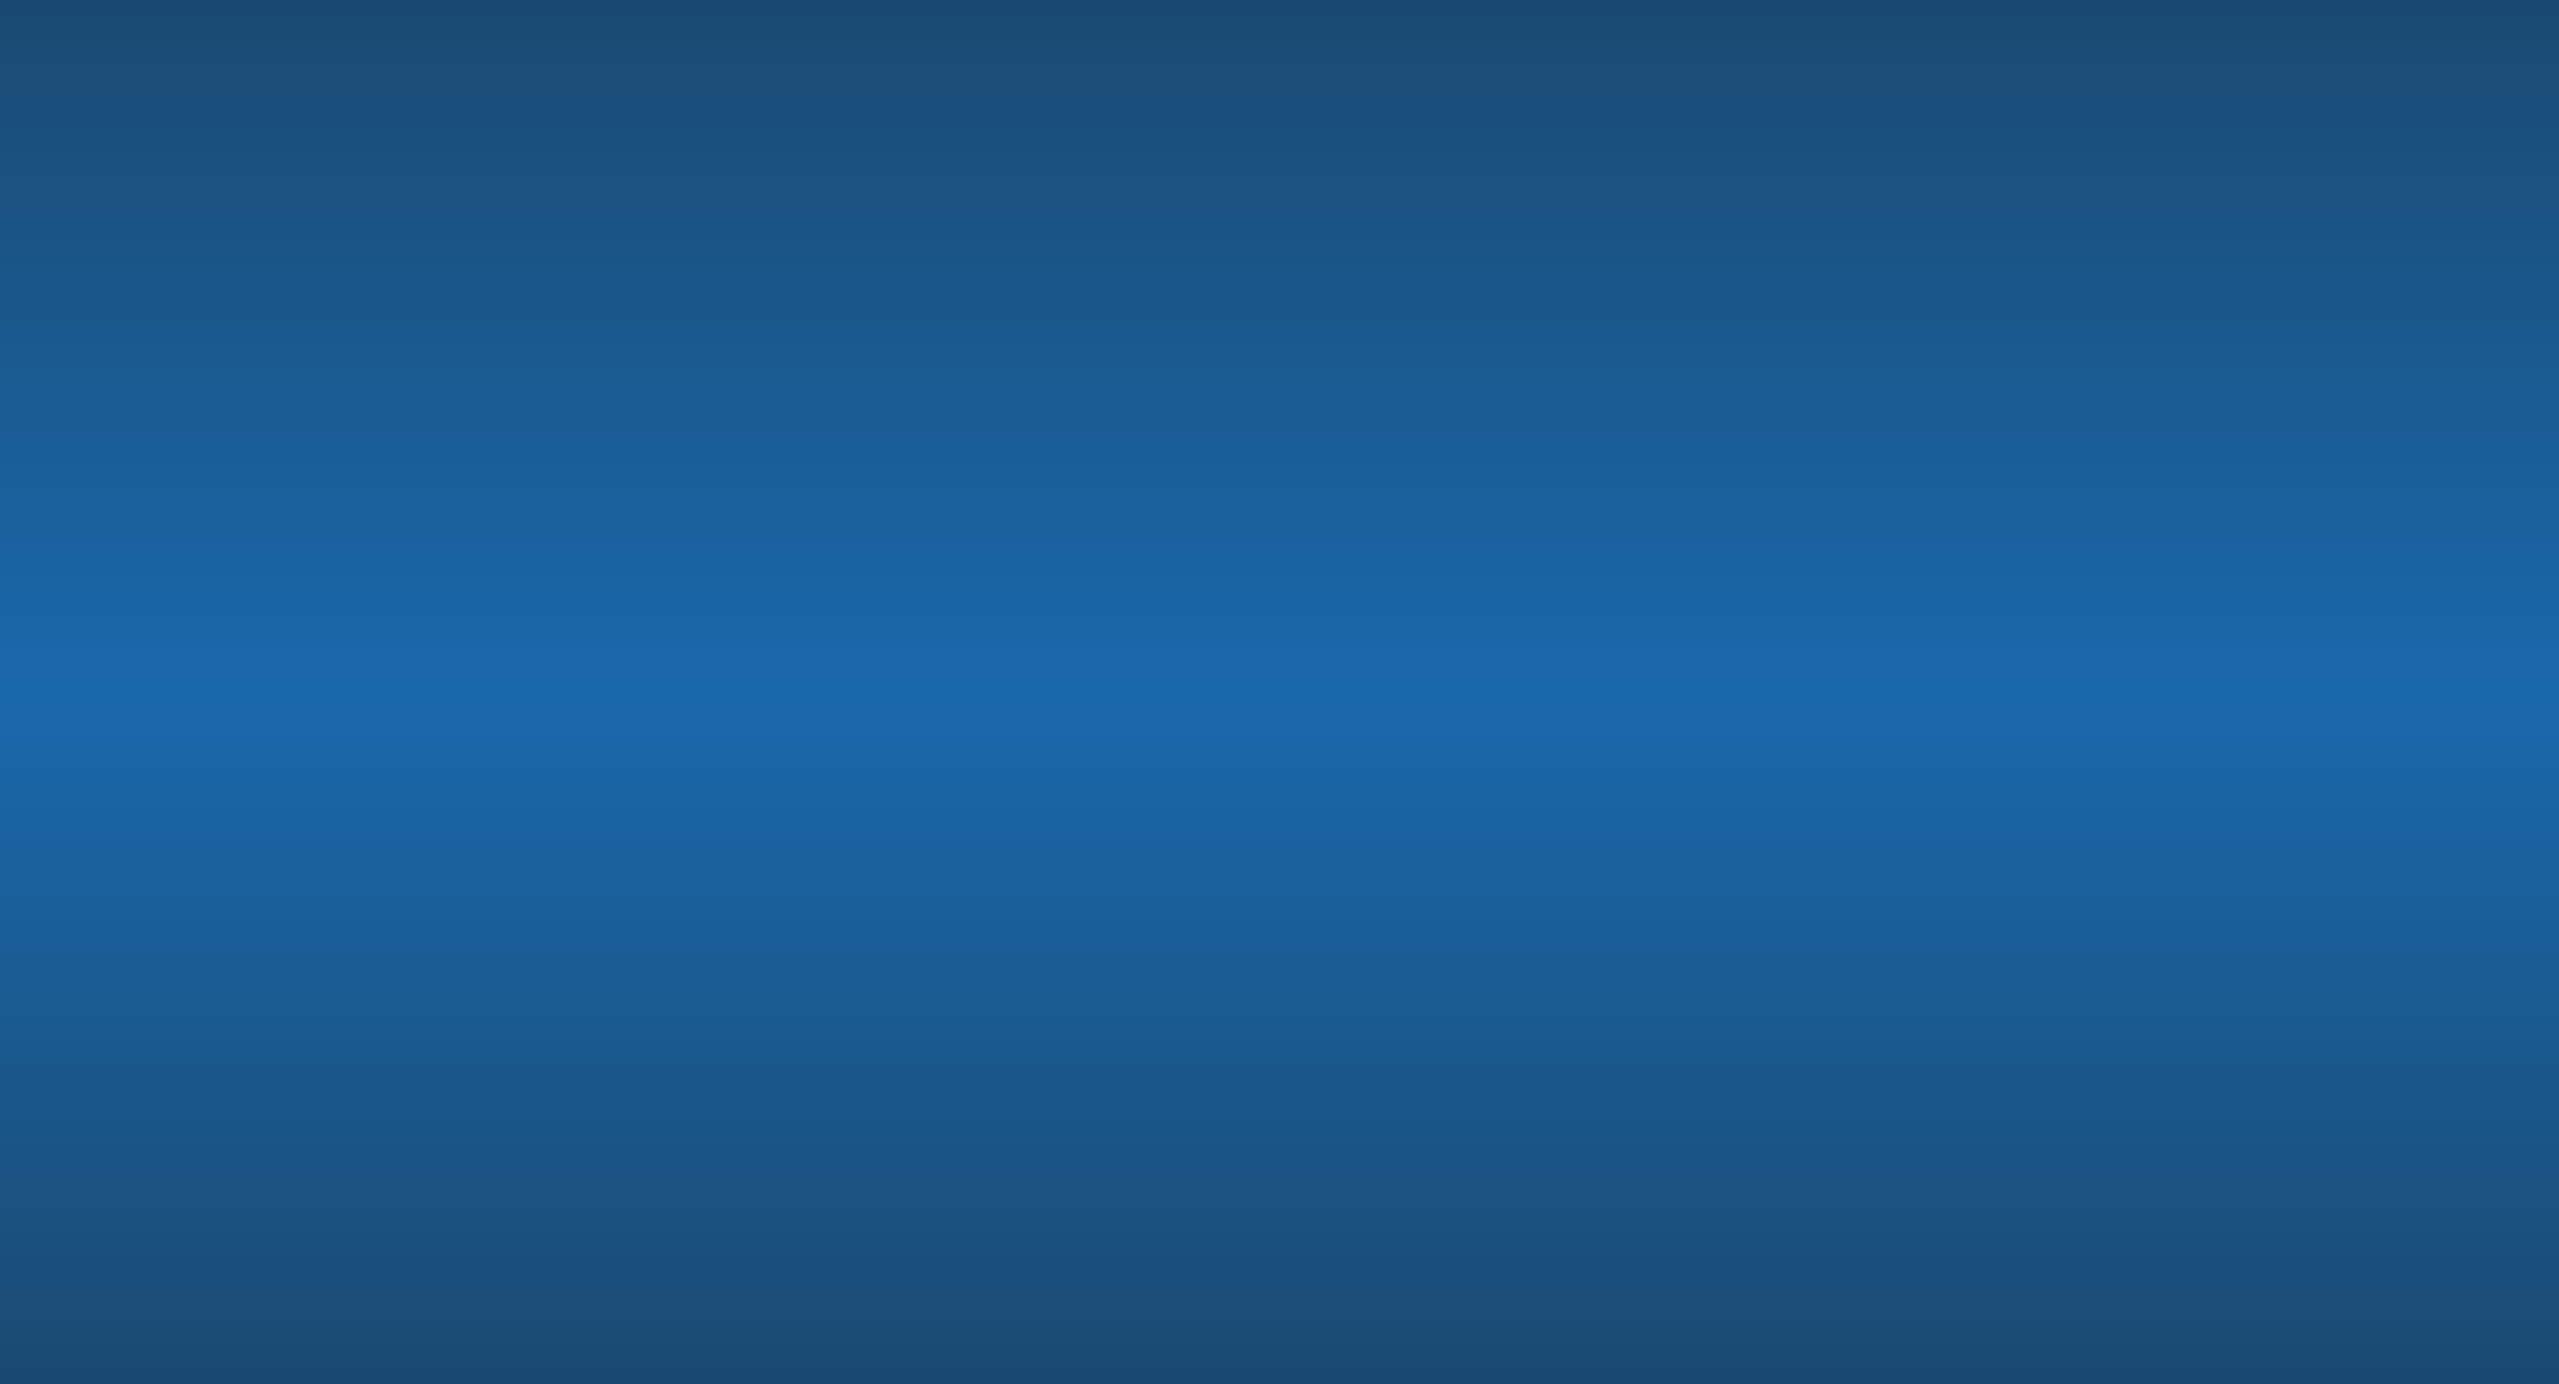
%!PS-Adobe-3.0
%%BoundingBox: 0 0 2559 1384
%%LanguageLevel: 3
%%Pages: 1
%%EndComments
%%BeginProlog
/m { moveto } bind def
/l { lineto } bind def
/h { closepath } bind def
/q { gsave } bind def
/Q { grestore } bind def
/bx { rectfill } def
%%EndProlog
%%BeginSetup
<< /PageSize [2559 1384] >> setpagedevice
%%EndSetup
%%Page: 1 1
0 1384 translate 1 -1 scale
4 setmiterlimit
1 setgray
0 0 2559 1384 bx
q 0 0 m 2559 0 l 2559 1384 l 0 1384 l h clip newpath
<< /ShadingType 2 /ColorSpace /DeviceRGB /Coords [1280 1384 1280 0] /Extend [true true] /Function << /FunctionType 3 /Domain [0 1] /Functions [<< /FunctionType 2 /Domain [0 1] /C0 [0.102 0.29 0.447] /C1 [0.102 0.412 0.678] /N 1 >> << /FunctionType 2 /Domain [0 1] /C0 [0.102 0.412 0.678] /C1 [0.102 0.29 0.447] /N 1 >>] /Bounds [0.5] /Encode [0 1 0 1] >> >> shfill Q
showpage
%%EOF
